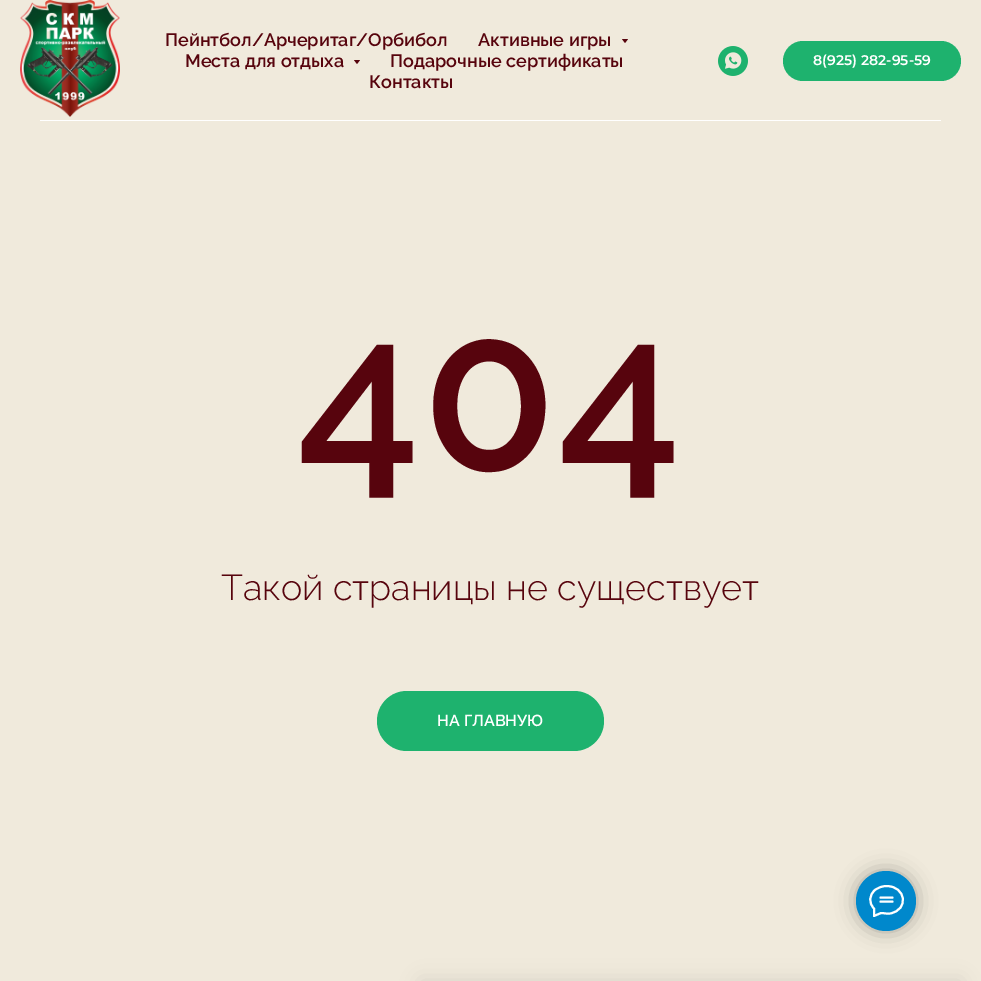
%!PS-Adobe-3.0
%%BoundingBox: 0 0 981 981
%%LanguageLevel: 3
%%Pages: 1
%%EndComments
%%BeginProlog
/m { moveto } bind def
/l { lineto } bind def
/c { curveto } bind def
/h { closepath } bind def
/f { fill } bind def
/S { stroke } bind def
/w { setlinewidth } bind def
/fn { [ exch dup neg 0 0 3 -1 roll 0 0 ] selectfont } def
/tx { moveto show } def
/bx { rectfill } def
/al { dup .setfillconstantalpha .setstrokeconstantalpha } def
/ci { newpath 0 360 arc closepath } def
/rr { 5 dict begin { /r /h /w /y /x } { exch def } forall
  x r add y moveto x w add y 2 copy h add r arct x w add y h add x 1 index r arct
  x y h add x y r arct x y 2 copy exch w add exch r arct closepath end } def
/sh { 12 dict begin { /a /b /q /h /w /y /x } { exch def } forall gsave /was 0 def
  9 -2 -9 { dup b mul 4 div /e exch def 1 sub .425 mul 2.718 exch exp 1 add a .99 .min exch div /now exch def
    1 1 now sub 1 was sub div sub al /was now def
    w h .min e 2 mul add 0 gt { x e sub y e sub w e 2 mul add h e 2 mul add
      q e add b .6 mul add w h .min 2 div e add .min 0 .max rr fill } if } for grestore end } def
/im { 5 dict begin { /h /w /y /x /name } { exch def } forall
  gsave x y translate w h scale
  w h 8 [w 0 0 h 0 0] name (r) file false 3 colorimage grestore end } def
%%EndProlog
%%BeginSetup
<< /PageSize [981 981] /PageUsesTransparency true >> setpagedevice
%%EndSetup
%%Page: 1 1
0 .pushpdf14devicefilter
0 981 translate 1 -1 scale
4 setmiterlimit
0.941 0.918 0.863 setrgbcolor
0 0 981 981 bx
(image0.raw) 20 0 100 117 im
/Raleway-SemiBold 18 fn
0.341 0.016 0.051 setrgbcolor
(Пейнтбол/Арчеритаг/Орбибол) 165 46 tx
(Активные игры) 478 46 tx
622 39 m 628 39 l 625 43 l h f
(Места для отдыха) 185 67 tx
354 60 m 360 60 l 357 64 l h f
(Подарочные сертификаты) 390 67 tx
(Контакты) 369 88 tx
(image1.raw) 718 46 30 30 im
0.118 0.698 0.431 setrgbcolor
783 41 178 40 20 rr f
/Montserrat-SemiBold 14 fn
1 setgray
(8\(925\) 282-95-59) 813 65 tx
40 120 901 1 bx
/Raleway-SemiBold 220 fn
0.341 0.016 0.051 setrgbcolor
297 470 m 1 0 (404) ashow
/Raleway-Light 36 fn
(Такой страницы не существует) 221 600 tx
0.118 0.698 0.431 setrgbcolor
377 691 227 60 30 rr f
/Raleway-SemiBold 16 fn
1 setgray
(НА ГЛАВНУЮ) 437 726 tx
0 setgray
856 871 60 60 30 10 0.3 sh
0 0.533 0.8 setrgbcolor
886 901 30 ci f
1 setgray
2 w
1 setlinecap
1 setlinejoin
880.5 897.5 m 892.5 897.5 l 880.5 901.5 m 892.5 901.5 l 874 908.5 m 868.5 903 869 895 875 890 c 878 887.5 882.5 886 886.5 886 c 906 886 909.5 910 890 913.5 c 886 914 884.5 913 881 913 c 874 916 l 874 909 l h S
0 setgray
421 981 540 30 0 10 0.1 sh
.poppdf14devicefilter showpage
%%EOF
